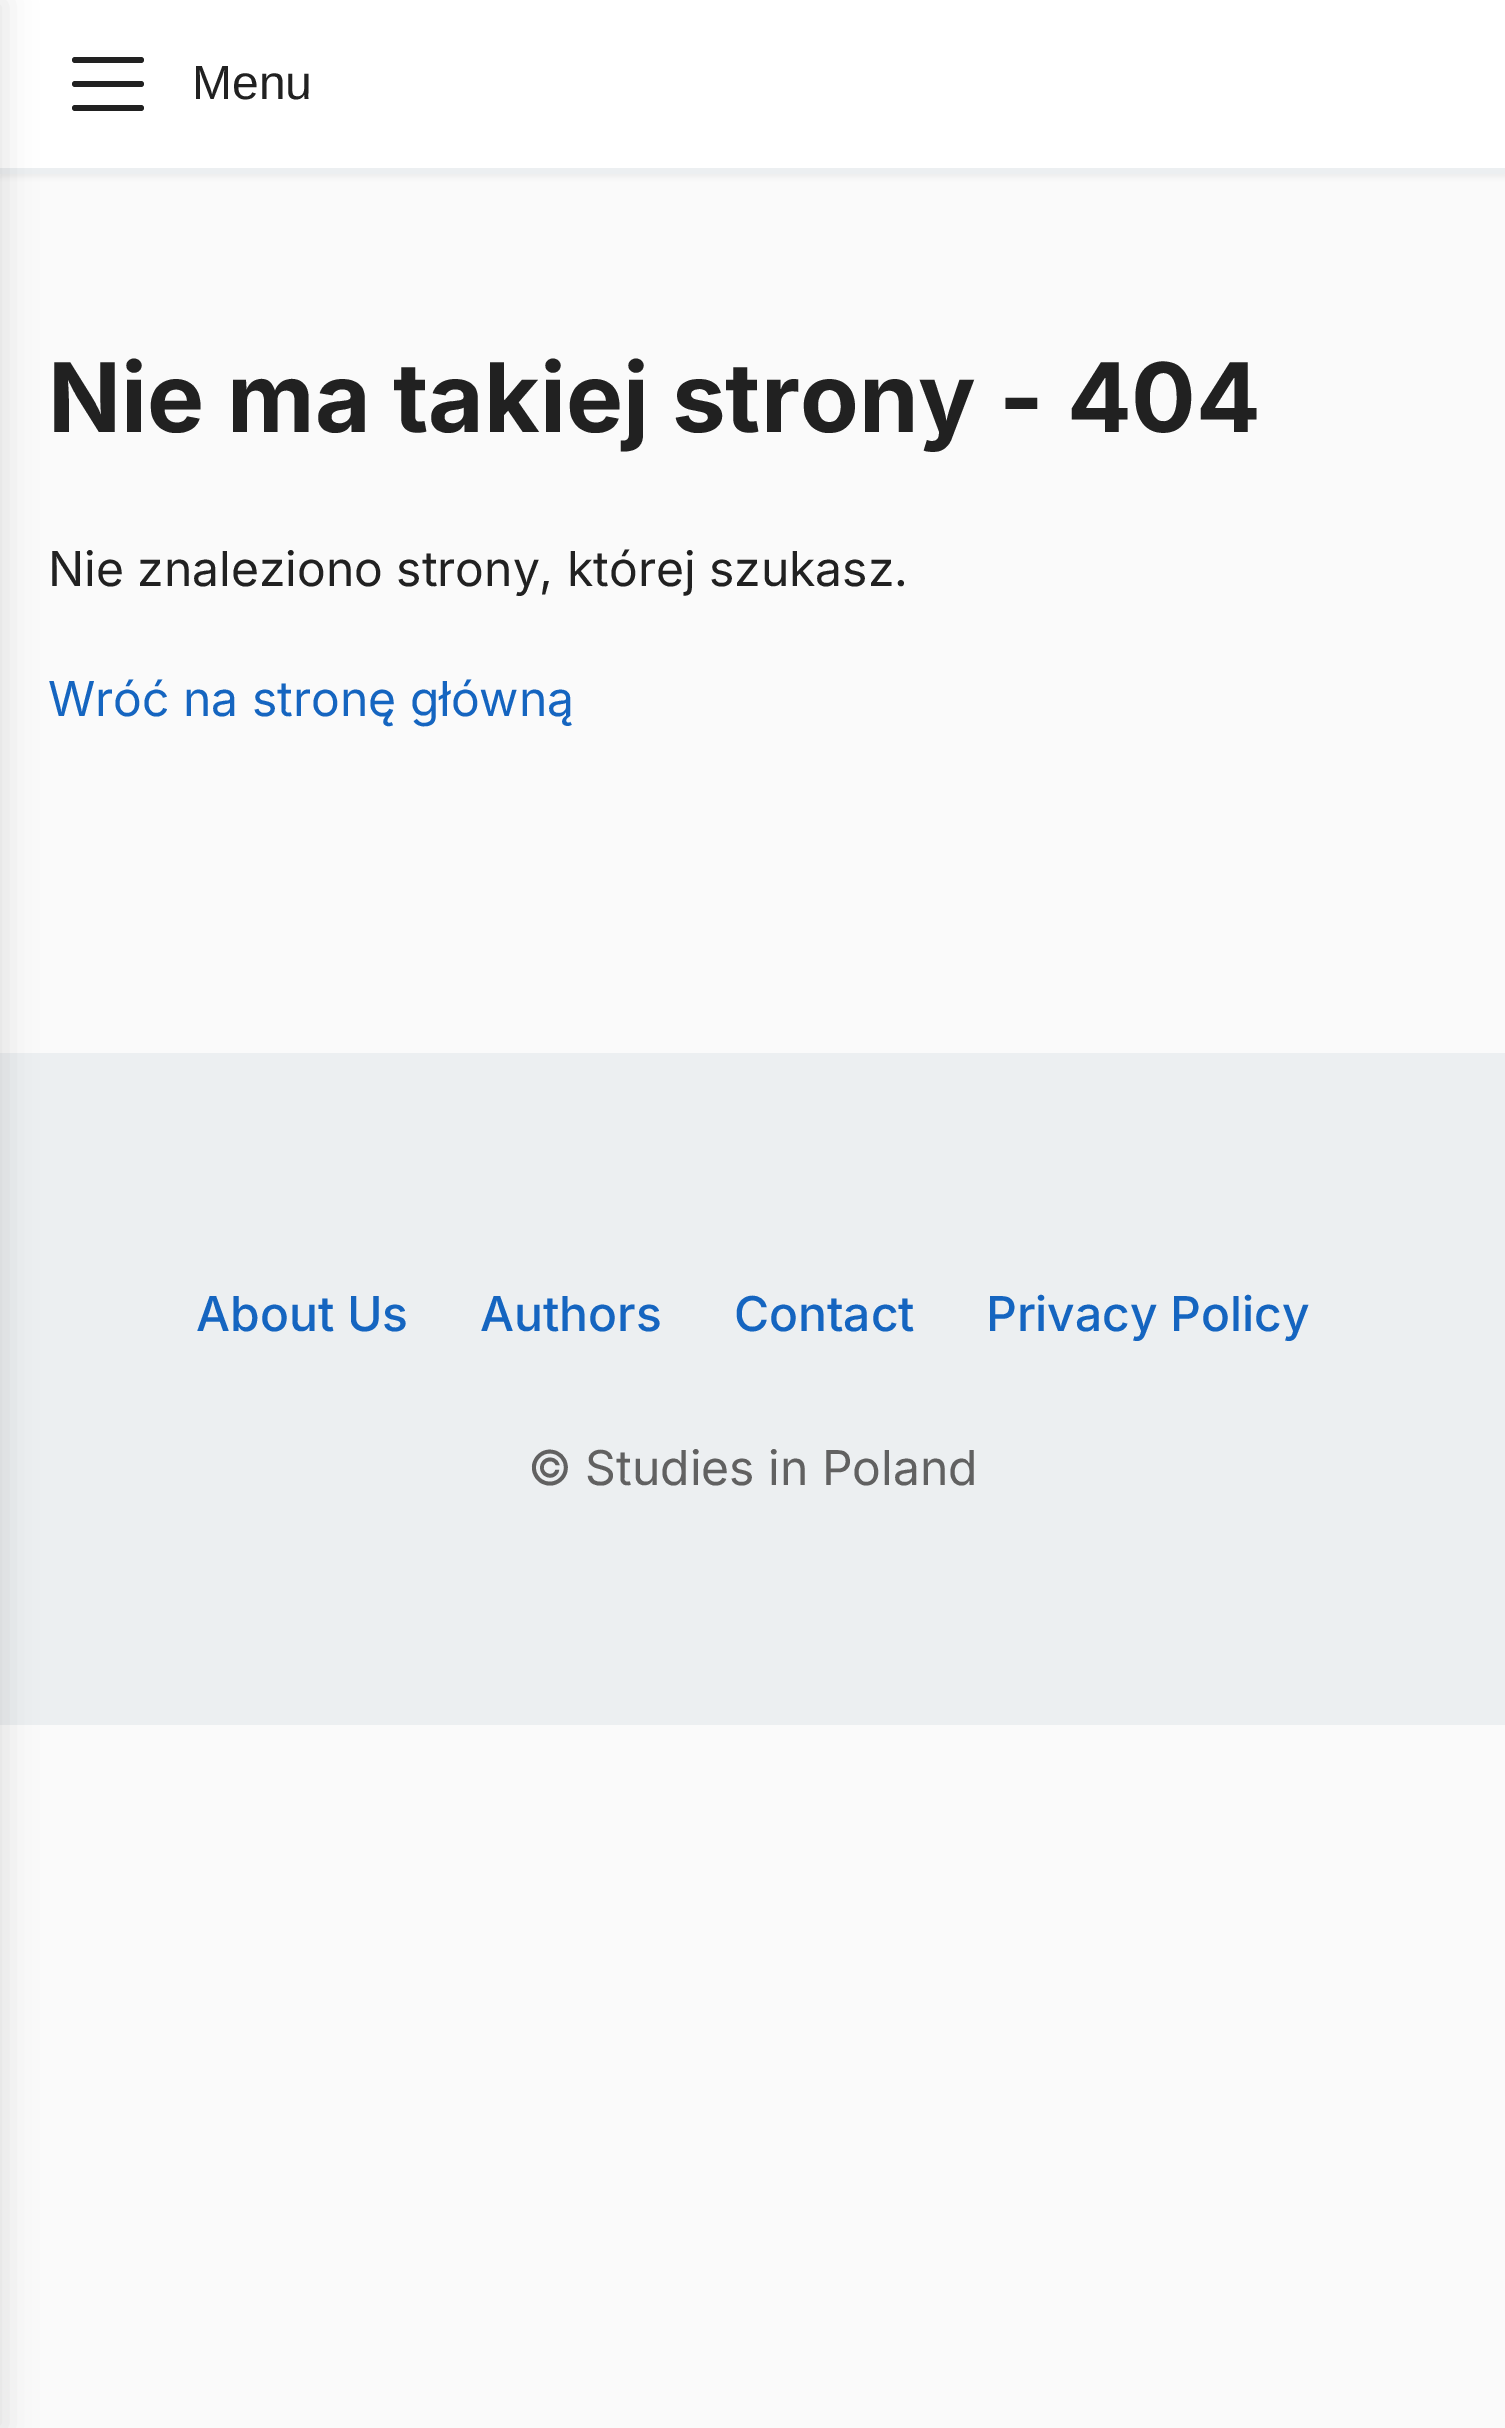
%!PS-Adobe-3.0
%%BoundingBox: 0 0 1505 2428
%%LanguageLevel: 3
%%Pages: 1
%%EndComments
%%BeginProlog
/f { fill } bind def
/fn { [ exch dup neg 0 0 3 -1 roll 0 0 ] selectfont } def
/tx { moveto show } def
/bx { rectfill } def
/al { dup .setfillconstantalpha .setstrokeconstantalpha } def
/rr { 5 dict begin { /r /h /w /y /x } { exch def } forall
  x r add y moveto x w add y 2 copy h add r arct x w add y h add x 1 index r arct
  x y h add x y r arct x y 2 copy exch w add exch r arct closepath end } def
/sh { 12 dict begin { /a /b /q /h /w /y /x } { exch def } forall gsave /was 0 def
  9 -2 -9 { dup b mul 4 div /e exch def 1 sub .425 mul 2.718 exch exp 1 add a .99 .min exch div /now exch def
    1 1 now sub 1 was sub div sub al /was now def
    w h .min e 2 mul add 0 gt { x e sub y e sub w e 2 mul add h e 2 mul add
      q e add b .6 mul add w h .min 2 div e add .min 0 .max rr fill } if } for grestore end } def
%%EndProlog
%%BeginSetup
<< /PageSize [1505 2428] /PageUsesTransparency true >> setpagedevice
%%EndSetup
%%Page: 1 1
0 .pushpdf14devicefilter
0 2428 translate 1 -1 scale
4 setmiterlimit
0.98 setgray
0 0 1505 2428 bx
0 setgray
0 3 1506 174 0 3 0.05 sh
1 setgray
0 0 1505 168 bx
0.925 0.937 0.945 setrgbcolor
0 168 1505 6 bx
0 1053 1505 672 bx
0 setgray
-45 0 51 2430 0 15 0.1 sh
0.129 setgray
72 57 72 6 3 rr f
72 81 72 6 3 rr f
72 105 72 6 3 rr f
/LiberationSans-Regular 48 fn
(Menu) 192 99 tx
/Inter-Bold 96 fn
(Nie ma takiej strony - 404) 48 432 tx
/Inter-Regular 48 fn
(Nie znaleziono strony, której szukasz.) 48 586 tx
0.082 0.396 0.753 setrgbcolor
(Wróć na stronę główną) 48 716 tx
/Inter-Medium 48 fn
(About Us) 196 1331 tx
(Authors) 480 1331 tx
(Contact) 734 1331 tx
(Privacy Policy) 986 1331 tx
/Inter-Regular 48 fn
0.38 setgray
(© Studies in Poland) 528 1485 tx
.poppdf14devicefilter showpage
%%EOF
